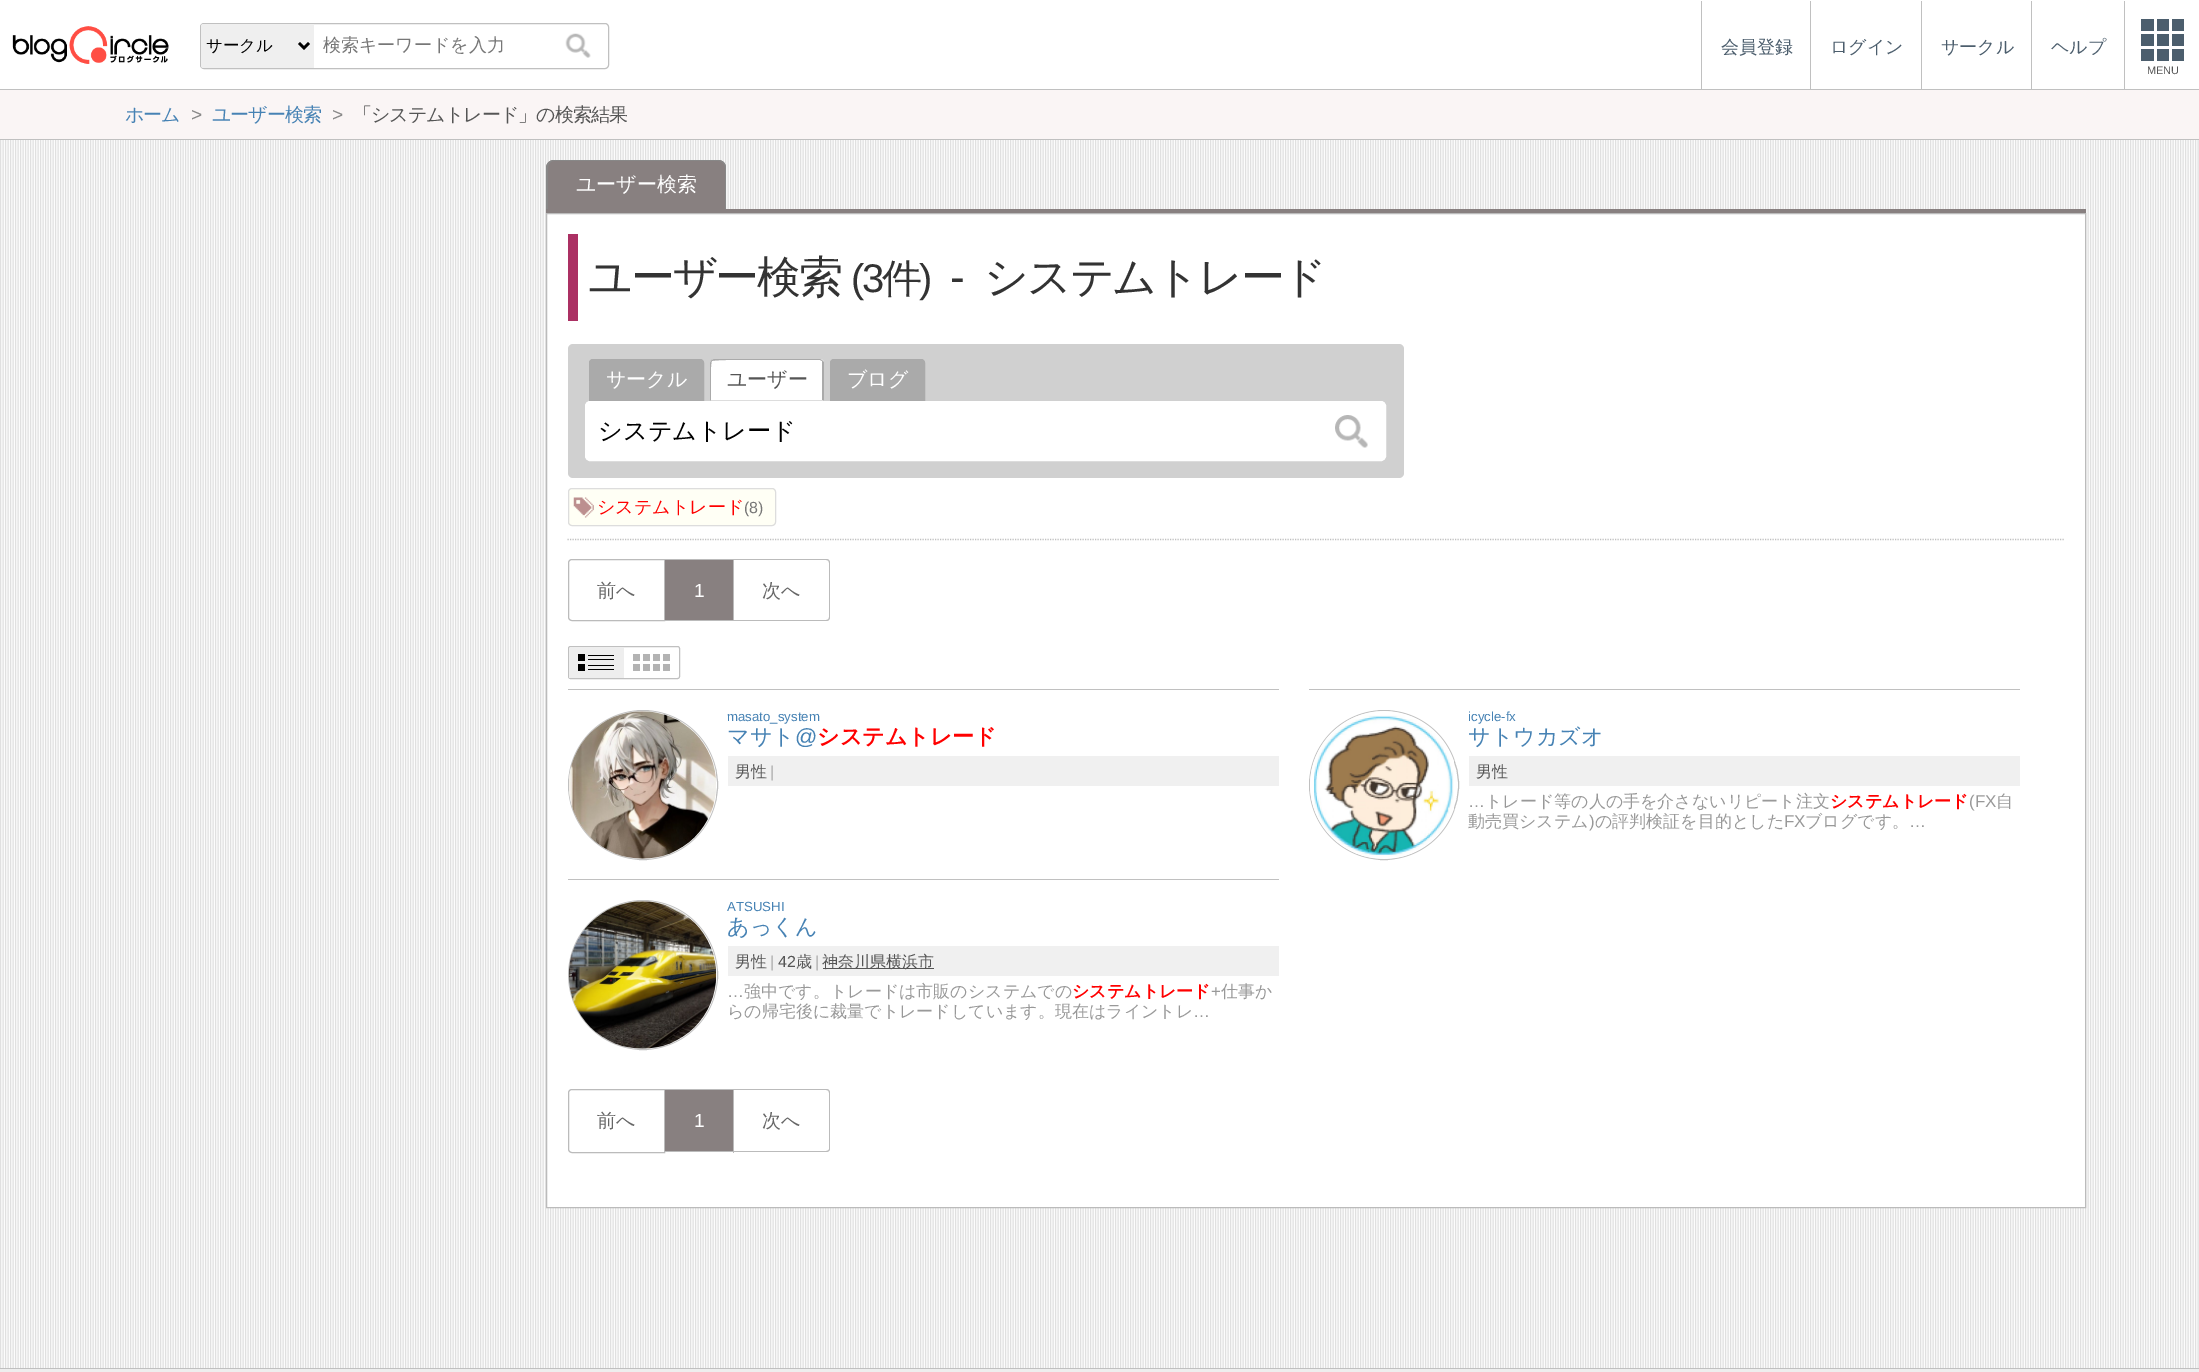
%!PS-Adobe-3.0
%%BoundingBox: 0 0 2199 1372
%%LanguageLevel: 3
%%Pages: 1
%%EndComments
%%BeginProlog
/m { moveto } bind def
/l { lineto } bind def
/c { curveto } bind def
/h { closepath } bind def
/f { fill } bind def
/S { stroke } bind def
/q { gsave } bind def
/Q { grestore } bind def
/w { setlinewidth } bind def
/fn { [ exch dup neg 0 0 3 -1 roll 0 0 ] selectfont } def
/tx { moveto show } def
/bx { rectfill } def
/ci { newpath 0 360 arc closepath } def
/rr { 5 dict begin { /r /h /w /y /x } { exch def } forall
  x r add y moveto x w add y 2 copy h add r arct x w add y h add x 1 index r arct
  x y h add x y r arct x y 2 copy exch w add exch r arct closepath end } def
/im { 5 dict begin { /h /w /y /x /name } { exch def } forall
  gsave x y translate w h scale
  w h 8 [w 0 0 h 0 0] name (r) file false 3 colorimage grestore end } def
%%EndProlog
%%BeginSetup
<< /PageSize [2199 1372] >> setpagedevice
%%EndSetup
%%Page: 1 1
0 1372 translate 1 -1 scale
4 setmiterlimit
1 setgray
0 0 2199 1372 bx
(image0.raw) 0 140 2199 1228 im
0.753 setgray
0 89 2199 1 bx
(image1.raw) 12 26 157 38 im
200.5 23.5 408 45 3.5 rr S
0.937 setgray
203.5 24 m 314 24 l 314 68 l 203.5 68 l 202 68 201 67 201 65.5 c 201 26.5 l 201 25 202 24 203.5 24 c h f
0 setgray
2.5 w
299 43 m 304 48 l 309 43 l S
/WenQuanYiZenHei-Medium 16.5 fn
(サークル) 206 51 tx
/WenQuanYiZenHei-Medium 18 fn
0.467 setgray
(検索キーワードを入力) 323 51 tx
(image2.raw) 565 33 26 25 im
0.753 setgray
1701 1 1 88 bx
0.298 0.369 0.427 setrgbcolor
(会員登録) 1721 53 tx
0.753 setgray
1810 1 1 88 bx
0.298 0.369 0.427 setrgbcolor
(ログイン) 1830 53 tx
0.753 setgray
1921 1 1 88 bx
0.298 0.369 0.427 setrgbcolor
(サークル) 1941 53 tx
0.753 setgray
2031 1 1 88 bx
0.298 0.369 0.427 setrgbcolor
(ヘルプ) 2051 53 tx
0.753 setgray
2124 1 1 88 bx
0.298 0.369 0.427 setrgbcolor
2141 19 43 12 bx
1 setgray
2169 19 3 12 bx
2154 19 3 12 bx
0.298 0.369 0.427 setrgbcolor
2141 34 43 12 bx
1 setgray
2169 34 3 12 bx
2154 34 3 12 bx
0.298 0.369 0.427 setrgbcolor
2141 49 43 12 bx
1 setgray
2169 49 3 12 bx
2154 49 3 12 bx
/LiberationSans-Regular 11 fn
0.333 setgray
(MENU) 2147 74 tx
0.98 0.961 0.961 setrgbcolor
0 90 2199 49 bx
0.753 setgray
0 139 2199 1 bx
/WenQuanYiZenHei-Medium 19 fn
0.275 0.51 0.706 setrgbcolor
125 121 m -1 0 (ホーム) ashow
/LiberationSans-Regular 19 fn
0.533 setgray
191 121 m -1 0 (>) ashow
/WenQuanYiZenHei-Medium 19 fn
0.275 0.51 0.706 setrgbcolor
212 121 m -1 0 (ユーザー検索) ashow
/LiberationSans-Regular 19 fn
0.533 setgray
332 121 m -1 0 (>) ashow
/WenQuanYiZenHei-Medium 19 fn
0.333 setgray
353 121 m -1 0 (「システムトレード」の検索結果) ashow
0.533 0.502 0.502 setrgbcolor
546 209 1540 4 bx
554 160 m 718 160 l 722.5 160 726 163.5 726 168 c 726 209 l 546 209 l 546 168 l 546 163.5 549.5 160 554 160 c h f
0.533 setgray
554 160 m 718 160 l 723 160 726 164 726 168 c 726 209 l 546 209 l 546 168 l 546 164 550 160 554 160 c h 554 161 m 718 161 l 722 161 725 164 725 168 c 725 209 l 548 209 l 548 168 l 548 164 551 161 554 161 c h eofill
/WenQuanYiZenHei-Medium 20 fn
1 setgray
(ユーザー検索) 576 191 tx
546.5 213.5 m 2085.5 213.5 l 2085.5 1207.5 l 546.5 1207.5 l h q f Q
0.733 setgray
1 w
S
0.671 0.188 0.388 setrgbcolor
568 234 10 87 bx
/WenQuanYiZenHei-Medium 44 fn
0.2 setgray
588 292 m -2.25 0 (ユーザー検索) ashow
/LiberationSans-Regular 40 fn
851 292 m -2.25 0 (\(3) ashow
/WenQuanYiZenHei-Medium 40 fn
882 292 m -2.25 0 (件) ashow
/LiberationSans-Regular 40 fn
919 292 m -2.25 0 (\)) ashow
/LiberationSans-Regular 44 fn
950 292 m -2.25 0 (-) ashow
/WenQuanYiZenHei-Medium 44 fn
984 292 m -2.25 0 (システムトレード) ashow
0.816 setgray
568 344 836 134 5 rr f
0.667 setgray
593 359.5 m 700 359.5 l 702 359.5 703.5 361 703.5 363 c 703.5 400.5 l 589.5 400.5 l 589.5 363 l 589.5 361 591 359.5 593 359.5 c h q f Q
S
/WenQuanYiZenHei-Medium 20 fn
1 setgray
(サークル) 606 386 tx
714 359 m 820 359 l 822 359 824 361 824 363 c 824 401 l 710 401 l 710 363 l 710 361 712 359 714 359 c h f
0.667 setgray
714 359 m 711 360 l 712 361 l 714 359 793 360 802 360 c 820 360 l 822 361 l 822 360 l 820 359 l h f
822 360 m 824 362 l 824 401 l 822 400 l 822 363 l 822 361 l h f
0.867 setgray
824 401 m 710 401 l 711 400 l 822 400 l h f
0.667 setgray
710 363 m 710 401 l 711 400 l 711 395 710 362 712 361 c 711 360 l h f
0.333 setgray
(ユーザー) 727 386 tx
0.667 setgray
834 359.5 m 921 359.5 l 923 359.5 924.5 361 924.5 363 c 924.5 400.5 l 830.5 400.5 l 830.5 363 l 830.5 361 832 359.5 834 359.5 c h q f Q
S
1 setgray
(ブログ) 847 386 tx
585.5 401.5 800 59 4.5 rr q f Q
S
/WenQuanYiZenHei-Medium 24.25 fn
0 setgray
(システムトレード) 598 439 tx
(image3.raw) 1335 415 33 33 im
0.753 setgray
1.2 w
[1.25 1.25] 0 setdash
567.5 539.5 m 2065 539.5 l S
1 1 0.961 setrgbcolor
568 488 208 38 4 rr f
(image4.raw) 573 497 21 21 im
0.867 setgray
1 w
[] 0 setdash
568.5 488.5 207 37 3.5 rr S
/WenQuanYiZenHei-Medium 18 fn
1 0 0 setrgbcolor
(システムトレード) 597 513 tx
/LiberationSans-Regular 16 fn
0.467 setgray
(\(8\)) 744 513 tx
0.733 setgray
572 559.5 m 664.5 559.5 l 664.5 620.5 l 572 620.5 l 570 620.5 568.5 619 568.5 617 c 568.5 563 l 568.5 561 570 559.5 572 559.5 c h S
/WenQuanYiZenHei-Medium 19 fn
0.4 setgray
(前へ) 597 597 tx
0.733 setgray
665 559 69 1 bx
733 559 1 62 bx
665 620 69 1 bx
0.533 0.502 0.502 setrgbcolor
665 560 68 60 bx
/LiberationSans-Regular 19 fn
1 setgray
(1) 694 597 tx
0.733 setgray
734 559 m 826 559 l 828 559 830 560 830 563 c 830 617 l 830 620 828 621 826 621 c 734 621 l h 734 560 m 826 560 l 828 560 829 561 829 563 c 829 617 l 829 619 828 620 826 620 c 734 620 l h eofill
/WenQuanYiZenHei-Medium 19 fn
0.4 setgray
(次へ) 762 597 tx
0.753 setgray
568.5 646.5 111 32 2 rr S
0.933 setgray
569 648 55 30 bx
0 setgray
578 654 7 7 bx
588 655 26 1 bx
588 659 26 1 bx
578 664 7 7 bx
588 665 26 1 bx
588 669 26 1 bx
0.702 setgray
633 654 7 7 bx
643 654 7 7 bx
653 654 7 7 bx
663 654 7 7 bx
633 664 7 7 bx
643 664 7 7 bx
653 664 7 7 bx
663 664 7 7 bx
0.753 setgray
568 689 711 1 bx
643 785 74.5 ci S
(image5.raw) 569 711 147 148 im
/LiberationSans-Regular 13.25 fn
0.275 0.51 0.706 setrgbcolor
(masato_system) 727 721 tx
/WenQuanYiZenHei-Medium 22 fn
(マサト) 727 744 tx
/LiberationSans-Regular 22 fn
(@) 795 744 tx
/WenQuanYiZenHei-Bold 22 fn
1 0 0 setrgbcolor
(システムトレード) 817 744 tx
0.941 setgray
728 756 551 30 bx
/WenQuanYiZenHei-Medium 16 fn
0.333 setgray
(男性) 735 777 tx
/LiberationSans-Regular 16 fn
0.667 setgray
(|) 770 777 tx
0.753 setgray
1309 689 711 1 bx
1384 785 74.5 ci S
(image6.raw) 1310 711 144 148 im
/LiberationSans-Regular 13.25 fn
0.275 0.51 0.706 setrgbcolor
(icycle-fx) 1468 721 tx
/WenQuanYiZenHei-Medium 22 fn
(サトウカズオ) 1468 744 tx
0.941 setgray
1469 756 551 30 bx
/WenQuanYiZenHei-Medium 16 fn
0.333 setgray
(男性) 1476 777 tx
/LiberationSans-Regular 17 fn
0.6 setgray
(…) 1468 807 tx
/WenQuanYiZenHei-Medium 17 fn
(トレード等の人の手を介さないリピート注文) 1485 807 tx
/WenQuanYiZenHei-Bold 17 fn
1 0 0 setrgbcolor
(システムトレード) 1830 807 tx
/LiberationSans-Regular 17 fn
0.6 setgray
(\(FX) 1969 807 tx
/WenQuanYiZenHei-Medium 17 fn
(自) 1996 807 tx
(動売買システム) 1468 827 tx
/LiberationSans-Regular 17 fn
(\)) 1589 827 tx
/WenQuanYiZenHei-Medium 17 fn
(の評判検証を目的とした) 1595 827 tx
/LiberationSans-Regular 17 fn
(FX) 1784 827 tx
/WenQuanYiZenHei-Medium 17 fn
(ブログです。) 1805 827 tx
/LiberationSans-Regular 17 fn
(…) 1909 827 tx
0.753 setgray
568 879 711 1 bx
643 975 74.5 ci S
(image7.raw) 568 901 149 148 im
/LiberationSans-Regular 13.25 fn
0.275 0.51 0.706 setrgbcolor
(ATSUSHI) 727 911 tx
/WenQuanYiZenHei-Medium 22 fn
(あっくん) 727 934 tx
0.941 setgray
728 946 551 30 bx
/WenQuanYiZenHei-Medium 16 fn
0.333 setgray
(男性) 735 967 tx
/LiberationSans-Regular 16 fn
0.667 setgray
(|) 770 967 tx
0.333 setgray
(42) 778 967 tx
/WenQuanYiZenHei-Medium 16 fn
(歳) 796 967 tx
/LiberationSans-Regular 16 fn
0.667 setgray
(|) 815 967 tx
0.333 setgray
823 968 111 1 bx
/WenQuanYiZenHei-Medium 16 fn
(神奈川県横浜市) 822 967 tx
/LiberationSans-Regular 17 fn
0.6 setgray
(…) 727 997 tx
/WenQuanYiZenHei-Medium 17 fn
(強中です。トレードは市販のシステムでの) 744 997 tx
/WenQuanYiZenHei-Bold 17 fn
1 0 0 setrgbcolor
(システムトレード) 1072 997 tx
/LiberationSans-Regular 17 fn
0.6 setgray
(+) 1211 997 tx
/WenQuanYiZenHei-Medium 17 fn
(仕事か) 1221 997 tx
(らの帰宅後に裁量でトレードしています。現在はライントレ) 727 1017 tx
/LiberationSans-Regular 17 fn
(…) 1193 1017 tx
0.733 setgray
572 1089.5 m 664.5 1089.5 l 664.5 1152.5 l 572 1152.5 l 570 1152.5 568.5 1151 568.5 1149 c 568.5 1093 l 568.5 1091 570 1089.5 572 1089.5 c h S
/WenQuanYiZenHei-Medium 19 fn
0.4 setgray
(前へ) 597 1127 tx
0.733 setgray
665 1089 69 1 bx
733 1089 1 64 bx
665 1151 69 1 bx
0.533 0.502 0.502 setrgbcolor
665 1090 68 61 bx
/LiberationSans-Regular 19 fn
1 setgray
(1) 694 1127 tx
0.733 setgray
734 1089 m 826 1089 l 828 1089 830 1090 830 1093 c 830 1149 l 830 1151 828 1152 826 1152 c 734 1152 l h 734 1090 m 826 1090 l 828 1090 829 1091 829 1093 c 829 1149 l 829 1150 828 1151 826 1151 c 734 1151 l h eofill
/WenQuanYiZenHei-Medium 19 fn
0.4 setgray
(次へ) 762 1127 tx
0.933 setgray
0 1369 2199 3 bx
0.753 setgray
0 1368 2199 1 bx
showpage
%%EOF
